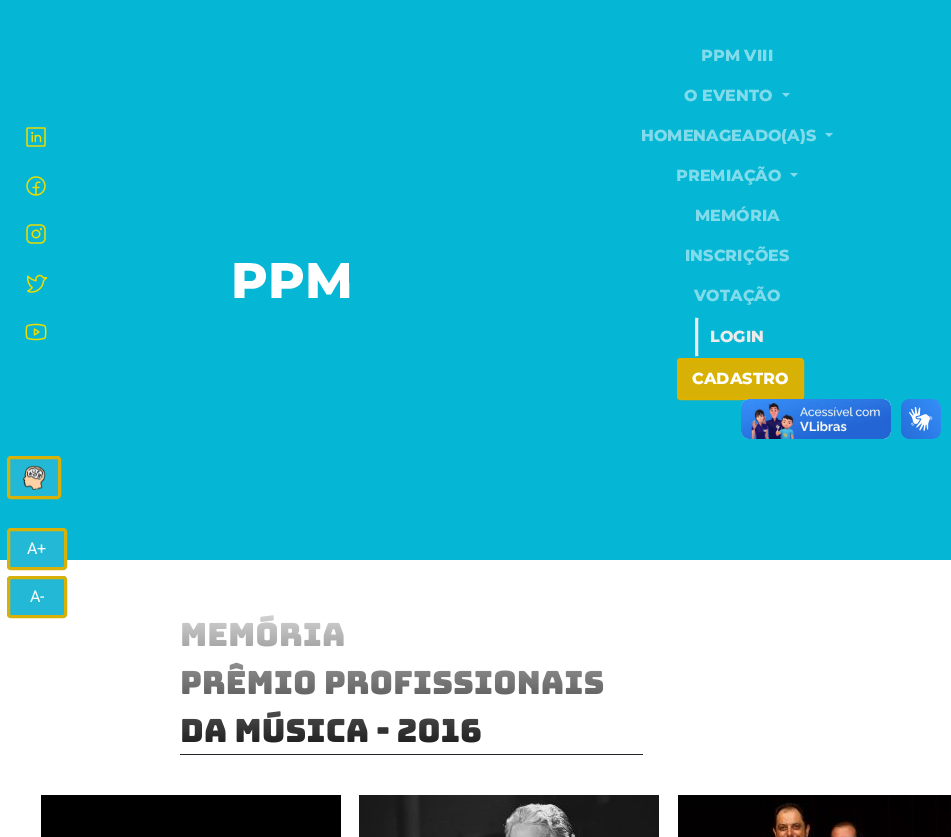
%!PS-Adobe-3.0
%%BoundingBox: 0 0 951 837
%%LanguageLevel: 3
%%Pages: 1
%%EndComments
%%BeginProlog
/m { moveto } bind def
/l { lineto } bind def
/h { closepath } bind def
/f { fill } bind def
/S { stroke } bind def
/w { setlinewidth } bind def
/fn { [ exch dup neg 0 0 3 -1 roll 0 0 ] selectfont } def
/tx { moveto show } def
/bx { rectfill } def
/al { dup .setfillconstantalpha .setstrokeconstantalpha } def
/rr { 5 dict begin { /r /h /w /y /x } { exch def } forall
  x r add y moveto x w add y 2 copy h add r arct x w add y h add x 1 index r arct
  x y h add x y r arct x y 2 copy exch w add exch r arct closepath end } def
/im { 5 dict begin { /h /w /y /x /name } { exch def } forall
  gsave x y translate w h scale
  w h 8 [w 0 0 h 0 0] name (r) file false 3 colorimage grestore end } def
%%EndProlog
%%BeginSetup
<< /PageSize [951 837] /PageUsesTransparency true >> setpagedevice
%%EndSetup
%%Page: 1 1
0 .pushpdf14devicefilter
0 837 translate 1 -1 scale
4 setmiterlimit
1 setgray
0 0 951 837 bx
0.02 0.718 0.831 setrgbcolor
0 0 951 560 bx
(image0.raw) 26 127 20 20 im
(image1.raw) 26 176 20 20 im
(image2.raw) 26 224 20 20 im
(image3.raw) 27 274 21 19 im
(image4.raw) 25 323 22 18 im
/Montserrat-ExtraBold 50 fn
1 setgray
(PPM) 231 298 tx
/Montserrat-ExtraBold 16 fn
0.51 0.859 0.918 setrgbcolor
(PPM VIII) 701 61 tx
(O EVENTO) 684 101 tx
782 93 m 790 93 l 786 97 l h f
(HOMENAGEADO\(A\)S) 641 141 tx
825 133 m 833 133 l 829 137 l h f
(PREMIAÇÃO) 676 181 tx
790 173 m 798 173 l 794 177 l h f
(MEMÓRIA) 695 221 tx
(INSCRIÇÕES) 685 261 tx
(VOTAÇÃO) 694 301 tx
0.922 setgray
3 w
697 356 m 696.5 354 l 696.5 320 l 697 318 l S
(LOGIN) 710 342 tx
0.843 0.694 0.024 setrgbcolor
677 358 127 42 4 rr f
0.97 al
0.867 0.694 0 setrgbcolor
678.5 359.5 124 39 2.5 rr S
1 al
1 setgray
(CADASTRO) 692 384 tx
0.137 0.725 0.839 setrgbcolor
7 456 54 43 4 rr f
0.97 al
0.867 0.694 0 setrgbcolor
8.5 457.5 51 40 2.5 rr S
1 al
(image5.raw) 22 465 24 25 im
0.137 0.725 0.839 setrgbcolor
7 528 60 42 4 rr f
0.97 al
0.867 0.694 0 setrgbcolor
8.5 529.5 57 39 2.5 rr S
/Roboto-Regular 16 fn
1 al
1 setgray
(A+) 27 554 tx
0.137 0.725 0.839 setrgbcolor
7 576 60 42 4 rr f
0.97 al
0.867 0.694 0 setrgbcolor
8.5 577.5 57 39 2.5 rr S
1 al
1 setgray
(A-) 30 602 tx
(image6.raw) 741 399 150 40 im
(image7.raw) 901 399 40 40 im
0.129 0.145 0.161 setrgbcolor
180 754 463 1 bx
(image8.raw) 182 615 162 32 im
(image9.raw) 182 662 422 33 im
(image10.raw) 182 711 299 32 im
0 setgray
41 795 300 42 bx
(image11.raw) 359 795 300 42 im
(image12.raw) 678 795 273 42 im
.poppdf14devicefilter showpage
%%EOF
